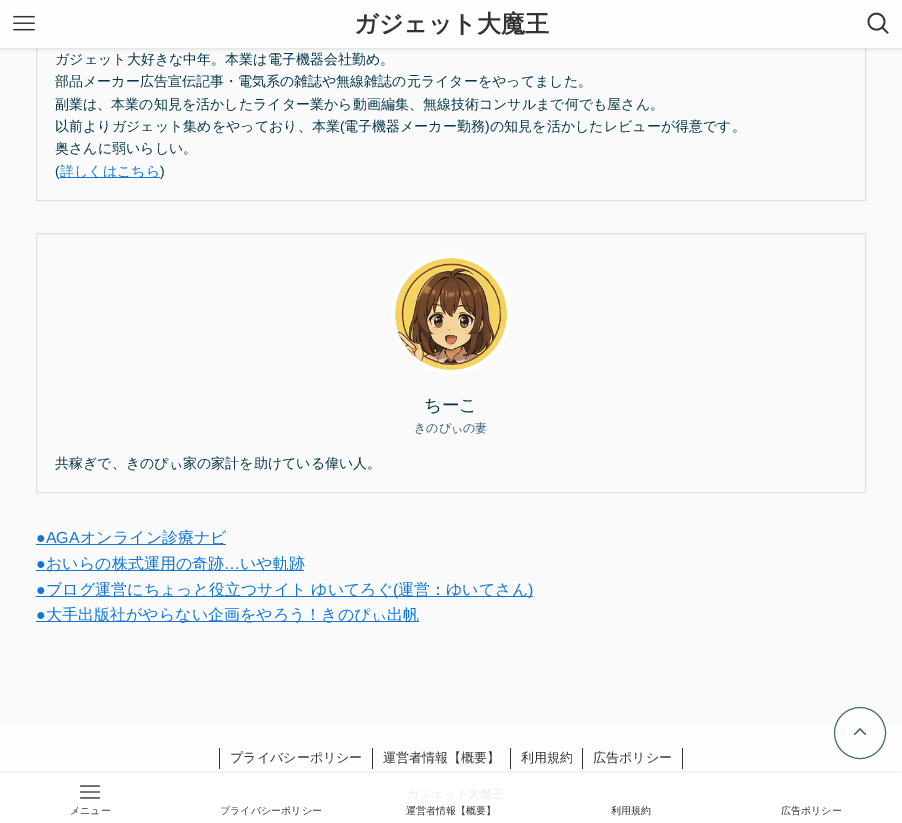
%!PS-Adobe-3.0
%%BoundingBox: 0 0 902 823
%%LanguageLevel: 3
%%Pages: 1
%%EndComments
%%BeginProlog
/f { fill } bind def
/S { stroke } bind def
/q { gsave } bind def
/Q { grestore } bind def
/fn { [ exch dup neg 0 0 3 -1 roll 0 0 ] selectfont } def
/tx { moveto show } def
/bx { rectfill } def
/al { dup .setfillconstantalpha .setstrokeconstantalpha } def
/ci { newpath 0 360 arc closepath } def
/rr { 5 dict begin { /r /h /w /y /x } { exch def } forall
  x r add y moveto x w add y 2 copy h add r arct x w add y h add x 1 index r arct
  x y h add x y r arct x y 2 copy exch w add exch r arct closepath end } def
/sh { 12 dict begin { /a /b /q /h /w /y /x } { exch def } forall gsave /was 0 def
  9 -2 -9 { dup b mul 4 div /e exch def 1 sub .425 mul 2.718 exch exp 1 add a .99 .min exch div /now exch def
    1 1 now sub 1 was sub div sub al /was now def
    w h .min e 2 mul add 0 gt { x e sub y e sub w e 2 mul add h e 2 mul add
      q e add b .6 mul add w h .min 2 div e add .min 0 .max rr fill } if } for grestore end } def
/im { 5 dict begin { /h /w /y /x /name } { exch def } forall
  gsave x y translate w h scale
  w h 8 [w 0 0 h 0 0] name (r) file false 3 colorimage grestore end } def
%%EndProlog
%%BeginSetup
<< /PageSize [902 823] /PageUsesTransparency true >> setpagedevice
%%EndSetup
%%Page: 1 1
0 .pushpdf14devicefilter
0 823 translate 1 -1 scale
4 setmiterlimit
0.98 setgray
0 0 902 823 bx
0.882 setgray
36.5 -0.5 829 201 rectstroke
0 setgray
0 1 902 48 0 2 0.12 sh
0.992 setgray
0 0 902 48 bx
(image0.raw) 13 15 22 16 im
/WenQuanYiZenHei-Bold 24 fn
0.2 setgray
(ガジェット大魔王) 354 32 tx
(image1.raw) 867 12 22 22 im
/WenQuanYiZenHei-Medium 14 fn
0.016 0.22 0.298 setrgbcolor
(ガジェット大好きな中年。本業は電子機器会社勤め。) 55 64 tx
(部品メーカー広告宣伝記事・電気系の雑誌や無線雑誌の元ライターをやってました。) 55 86 tx
(副業は、本業の知見を活かしたライター業から動画編集、無線技術コンサルまで何でも屋さん。) 55 109 tx
(以前よりガジェット集めをやっており、本業) 55 131 tx
/LiberationSans-Regular 14 fn
(\() 340 131 tx
/WenQuanYiZenHei-Medium 14 fn
(電子機器メーカー勤務) 344 131 tx
/LiberationSans-Regular 14 fn
(\)) 485 131 tx
/WenQuanYiZenHei-Medium 14 fn
(の知見を活かしたレビューが得意です。) 490 131 tx
(奥さんに弱いらしい。) 55 153 tx
/LiberationSans-Regular 14 fn
(\() 55 176 tx
0.067 0.463 0.831 setrgbcolor
60 177 100 1 bx
/WenQuanYiZenHei-Medium 14 fn
(詳しくはこちら) 60 176 tx
/LiberationSans-Regular 14 fn
0.016 0.22 0.298 setrgbcolor
(\)) 160 176 tx
0.882 setgray
36.5 233.5 829 259 rectstroke
0.992 setgray
451 314 60 ci f
(image2.raw) 395 258 112 112 im
/WenQuanYiZenHei-Medium 17.5 fn
0.016 0.22 0.298 setrgbcolor
(ちーこ) 424 411 tx
/WenQuanYiZenHei-Medium 12 fn
0.208 0.373 0.435 setrgbcolor
(きのぴぃの妻) 414 432 tx
/WenQuanYiZenHei-Medium 14 fn
0.016 0.22 0.298 setrgbcolor
(共稼ぎで、きのぴぃ家の家計を助けている偉い人。) 55 468 tx
/LiberationSans-Regular 16 fn
0.067 0.463 0.831 setrgbcolor
(●AGA) 36 543 tx
36 544 190 1 bx
/WenQuanYiZenHei-Medium 16 fn
(オンライン診療ナビ) 80 543 tx
/LiberationSans-Regular 16 fn
(●) 36 569 tx
36 570 268 1 bx
/WenQuanYiZenHei-Medium 16 fn
(おいらの株式運用の奇跡) 46 569 tx
/LiberationSans-Regular 16 fn
(…) 224 569 tx
/WenQuanYiZenHei-Medium 16 fn
(いや軌跡) 240 569 tx
/LiberationSans-Regular 16 fn
(●) 36 595 tx
36 596 497 1 bx
/WenQuanYiZenHei-Medium 16 fn
(ブログ運営にちょっと役立つサイト ゆいてろぐ) 46 595 tx
/LiberationSans-Regular 16 fn
(\() 393 595 tx
/WenQuanYiZenHei-Medium 16 fn
(運営：ゆいてさん) 398 595 tx
/LiberationSans-Regular 16 fn
(\)) 528 595 tx
(●) 36 620 tx
36 621 383 1 bx
/WenQuanYiZenHei-Medium 16 fn
(大手出版社がやらない企画をやろう！きのぴぃ出帆) 46 620 tx
0.992 setgray
0 724 902 49 bx
0.75 al
1 setgray
860 733 26 ci f
0.016 0.22 0.298 setrgbcolor
860 733 25.5 ci S
1 al
(image3.raw) 853 728 14 8 im
1 setgray
0 773 902 50 bx
0.2 setgray
372 748 1 21 bx
219 748 1 21 bx
/WenQuanYiZenHei-Medium 13 fn
(プライバシーポリシー) 230 762 tx
510 748 1 21 bx
(運営者情報【概要】) 383 762 tx
582 748 1 21 bx
(利用規約) 521 762 tx
682 748 1 21 bx
(広告ポリシー) 593 762 tx
/WenQuanYiZenHei-Medium 12 fn
0.922 setgray
(ガジェット大魔王) 407 798 tx
q
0 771 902 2 rectclip
0 setgray
0 773 902 50 0 2 0.1 sh
Q
(image4.raw) 80 785 20 14 im
/WenQuanYiZenHei-Medium 10 fn
0.2 setgray
(メニュー) 70 814 tx
(プライバシーポリシー) 220 814 tx
(運営者情報【概要】) 406 814 tx
(利用規約) 611 814 tx
(広告ポリシー) 781 814 tx
.poppdf14devicefilter showpage
%%EOF
